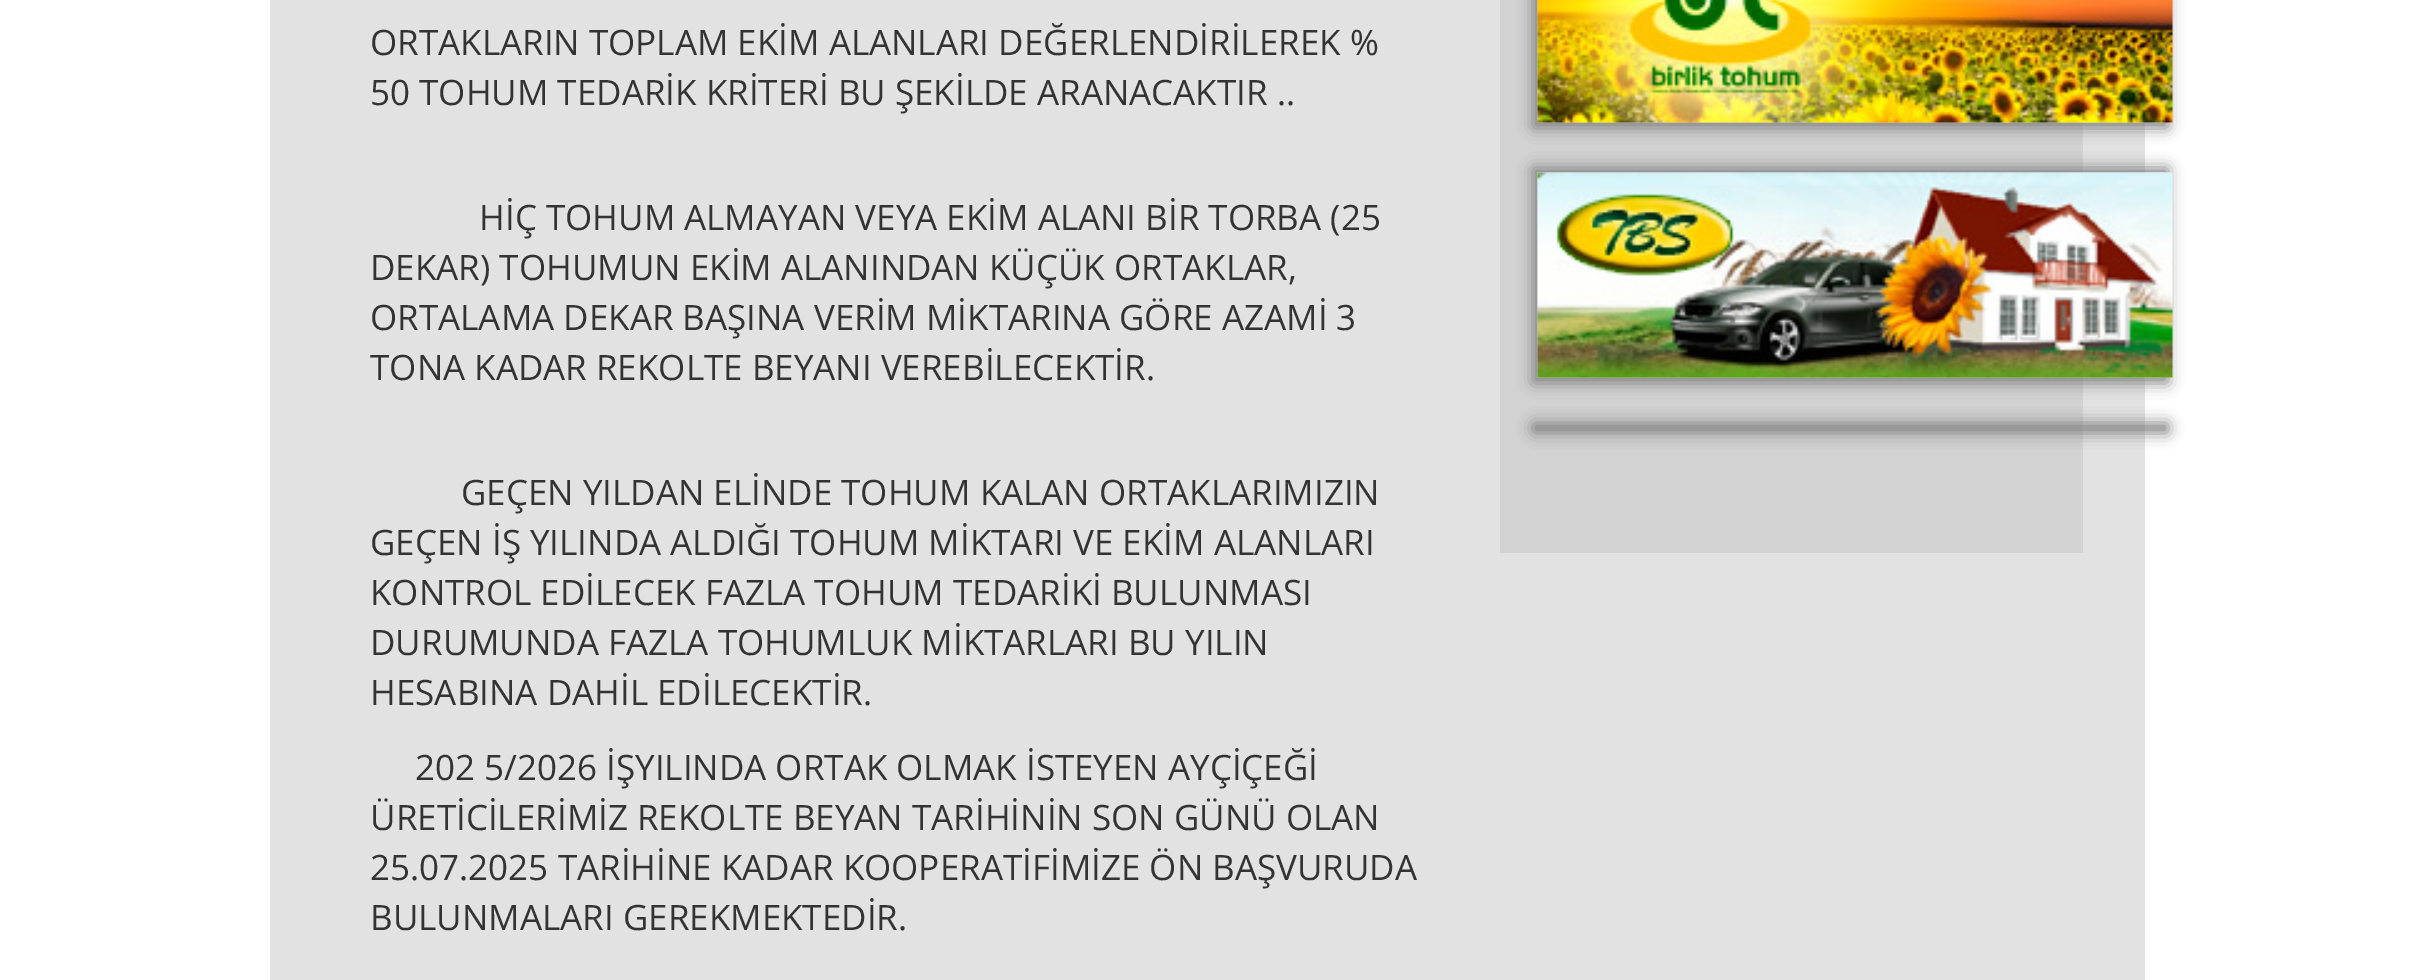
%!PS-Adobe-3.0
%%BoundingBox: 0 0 2415 980
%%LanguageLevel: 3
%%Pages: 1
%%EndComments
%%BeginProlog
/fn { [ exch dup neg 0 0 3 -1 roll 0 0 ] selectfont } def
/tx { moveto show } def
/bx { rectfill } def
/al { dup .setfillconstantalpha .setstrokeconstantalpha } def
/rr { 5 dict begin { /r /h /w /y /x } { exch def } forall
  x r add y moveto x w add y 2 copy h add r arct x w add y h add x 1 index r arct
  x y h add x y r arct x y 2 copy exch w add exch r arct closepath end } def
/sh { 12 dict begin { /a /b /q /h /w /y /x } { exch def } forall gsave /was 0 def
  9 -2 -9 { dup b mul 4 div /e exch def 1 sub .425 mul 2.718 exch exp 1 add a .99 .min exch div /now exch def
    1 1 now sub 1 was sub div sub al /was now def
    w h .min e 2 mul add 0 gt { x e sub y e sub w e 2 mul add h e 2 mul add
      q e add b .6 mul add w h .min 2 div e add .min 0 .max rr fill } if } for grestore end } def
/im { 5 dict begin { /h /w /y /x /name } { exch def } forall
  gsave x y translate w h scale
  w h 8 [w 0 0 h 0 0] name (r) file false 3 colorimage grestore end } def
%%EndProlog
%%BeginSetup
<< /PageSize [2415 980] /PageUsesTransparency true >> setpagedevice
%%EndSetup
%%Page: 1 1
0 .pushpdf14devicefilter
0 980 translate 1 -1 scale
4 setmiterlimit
1 setgray
0 0 2415 980 bx
0.886 setgray
270 0 1875 980 bx
/OpenSans-Regular 35 fn
0.2 setgray
(ORTAKLARIN TOPLAM EKİM ALANLARI DEĞERLENDİRİLEREK %) 370 55 tx
(50 TOHUM TEDARİK KRİTERİ BU ŞEKİLDE ARANACAKTIR ..) 370 105 tx
(HİÇ TOHUM ALMAYAN VEYA EKİM ALANI BİR TORBA \(25) 479 230 tx
(DEKAR\) TOHUMUN EKİM ALANINDAN KÜÇÜK ORTAKLAR,) 370 280 tx
(ORTALAMA DEKAR BAŞINA VERİM MİKTARINA GÖRE AZAMİ 3) 370 330 tx
(TONA KADAR REKOLTE BEYANI VEREBİLECEKTİR.) 370 380 tx
(GEÇEN YILDAN ELİNDE TOHUM KALAN ORTAKLARIMIZIN) 461 505 tx
(GEÇEN İŞ YILINDA ALDIĞI TOHUM MİKTARI VE EKİM ALANLARI) 370 555 tx
(KONTROL EDİLECEK FAZLA TOHUM TEDARİKİ BULUNMASI) 370 605 tx
(DURUMUNDA FAZLA TOHUMLUK MİKTARLARI BU YILIN) 370 655 tx
(HESABINA DAHİL EDİLECEKTİR.) 370 705 tx
(202 5/2026 İŞYILINDA ORTAK OLMAK İSTEYEN AYÇİÇEĞİ) 415 780 tx
(ÜRETİCİLERİMİZ REKOLTE BEYAN TARİHİNİN SON GÜNÜ OLAN) 370 830 tx
(25.07.2025 TARİHİNE KADAR KOOPERATİFİMİZE ÖN BAŞVURUDA) 370 880 tx
(BULUNMALARI GEREKMEKTEDİR.) 370 930 tx
0.824 setgray
1500 0 583 553 bx
0.502 setgray
1533 -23 635 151 0 7.5 1 sh
(image0.raw) 1537 0 636 123 im
1533 168 635 215 0 7.5 1 sh
(image1.raw) 1537 172 636 206 im
1533 423 635 10 0 7.5 1 sh
.poppdf14devicefilter showpage
%%EOF
